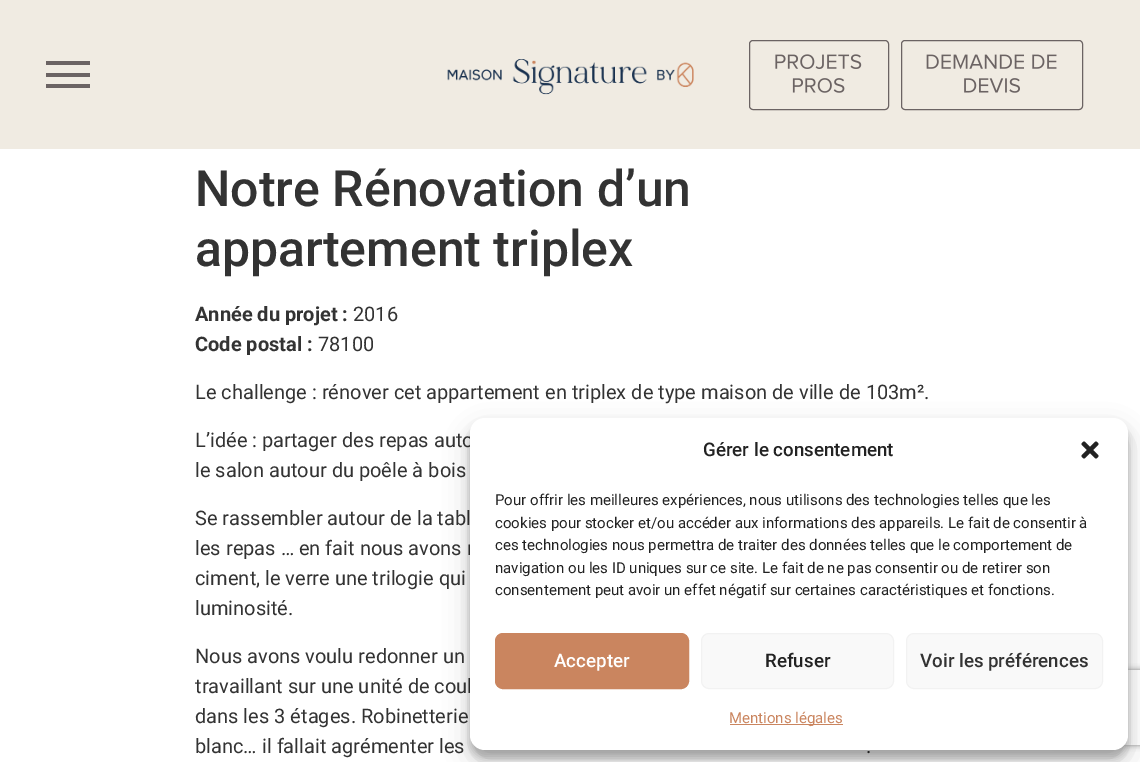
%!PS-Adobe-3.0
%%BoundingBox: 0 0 1140 762
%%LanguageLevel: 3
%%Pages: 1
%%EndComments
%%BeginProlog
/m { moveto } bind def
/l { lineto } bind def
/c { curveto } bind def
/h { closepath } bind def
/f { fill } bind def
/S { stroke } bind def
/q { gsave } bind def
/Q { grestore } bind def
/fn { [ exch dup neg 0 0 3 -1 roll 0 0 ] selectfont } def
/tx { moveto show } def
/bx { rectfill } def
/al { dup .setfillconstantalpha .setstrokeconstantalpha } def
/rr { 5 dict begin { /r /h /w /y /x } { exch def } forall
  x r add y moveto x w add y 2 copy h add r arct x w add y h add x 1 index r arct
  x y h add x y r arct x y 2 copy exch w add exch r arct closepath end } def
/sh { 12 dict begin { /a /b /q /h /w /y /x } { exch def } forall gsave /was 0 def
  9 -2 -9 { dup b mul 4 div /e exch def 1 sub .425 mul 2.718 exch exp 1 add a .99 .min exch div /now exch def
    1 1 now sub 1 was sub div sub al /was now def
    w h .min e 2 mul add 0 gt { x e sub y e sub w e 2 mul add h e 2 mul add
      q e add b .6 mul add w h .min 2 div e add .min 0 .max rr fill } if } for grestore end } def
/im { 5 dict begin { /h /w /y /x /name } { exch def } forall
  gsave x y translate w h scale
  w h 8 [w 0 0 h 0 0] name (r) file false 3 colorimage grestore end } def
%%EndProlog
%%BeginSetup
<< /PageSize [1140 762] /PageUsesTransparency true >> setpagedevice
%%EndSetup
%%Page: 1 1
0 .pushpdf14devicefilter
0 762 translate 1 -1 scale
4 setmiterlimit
1 setgray
0 0 1140 762 bx
0.941 0.922 0.886 setrgbcolor
0 0 1140 149 bx
0.42 0.388 0.388 setrgbcolor
46 61 44 4 bx
46 73 44 4 bx
46 84 44 4 bx
(image0.raw) 447 59 247 36 im
749.5 40.5 139 69 3.5 rr S
(image1.raw) 775 54 87 15 im
(image2.raw) 792 78 53 15 im
901.5 40.5 181 69 3.5 rr S
(image3.raw) 926 54 131 15 im
(image4.raw) 964 78 56 15 im
/Roboto-Medium 50 fn
0.2 setgray
(Notre Rénovation d’un) 195 206 tx
(appartement triplex) 195 266 tx
/Roboto-Bold 20 fn
(Année du projet :) 195 321 tx
/Roboto-Regular 20 fn
(2016) 353 321 tx
/Roboto-Bold 20 fn
(Code postal :) 195 351 tx
/Roboto-Regular 20 fn
(78100) 318 351 tx
(Le challenge : rénover cet appartement en triplex de type maison de ville de 103m².) 195 399 tx
(L’idée : partager des repas auto) 195 447 tx
(le salon autour du poêle à bois) 195 477 tx
(Se rassembler autour de la tabl) 195 525 tx
(les repas … en fait nous avons r) 195 555 tx
(ciment, le verre une trilogie qui) 195 585 tx
(luminosité.) 195 615 tx
(Nous avons voulu redonner un) 195 663 tx
(travaillant sur une unité de coul) 195 693 tx
(dans les 3 étages. Robinetterie) 195 723 tx
(blanc… il fallait agrémenter les) 195 753 tx
(.) 866 753 tx
0 setgray
470 425 658 333 15 4 0.23 sh
470 430 658 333 15 12.5 0.19 sh
q
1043 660 m 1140 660 l 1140 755 l 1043 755 l h 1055.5 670 m 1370.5 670 l 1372 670 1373 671 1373 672.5 c 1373 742.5 l 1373 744 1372 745 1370.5 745 c 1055.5 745 l 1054 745 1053 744 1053 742.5 c 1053 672.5 l 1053 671 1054 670 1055.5 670 c h eoclip newpath
0.502 setgray
1053 670 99 75 2.5 3 1 sh
Q
1 setgray
470 418 658 332 15 rr f
/Roboto-Medium 18.75 fn
0.133 setgray
(Gérer le consentement) 703 456 tx
(image5.raw) 1081 441 18 18 im
/Roboto-Regular 15 fn
(Pour offrir les meilleures expériences, nous utilisons des technologies telles que les) 495 505 tx
(cookies pour stocker et/ou accéder aux informations des appareils. Le fait de consentir à) 495 528 tx
(ces technologies nous permettra de traiter des données telles que le comportement de) 495 550 tx
(navigation ou les ID uniques sur ce site. Le fait de ne pas consentir ou de retirer son) 495 573 tx
(consentement peut avoir un effet négatif sur certaines caractéristiques et fonctions.) 495 595 tx
0.792 0.522 0.373 setrgbcolor
495.5 633.5 193 55 7.5 rr q f Q
S
/Roboto-Medium 18.75 fn
1 setgray
(Accepter) 554 667 tx
0.976 setgray
701.5 633.5 192 55 7.5 rr q f Q
0.949 setgray
S
0.133 setgray
(Refuser) 765 667 tx
0.976 setgray
906.5 633.5 196 55 7.5 rr q f Q
0.949 setgray
S
0.2 setgray
(Voir les préférences) 920 667 tx
0.792 0.522 0.373 setrgbcolor
730 724 113 1 bx
/Roboto-Regular 15 fn
(Mentions légales) 729 723 tx
.poppdf14devicefilter showpage
%%EOF
